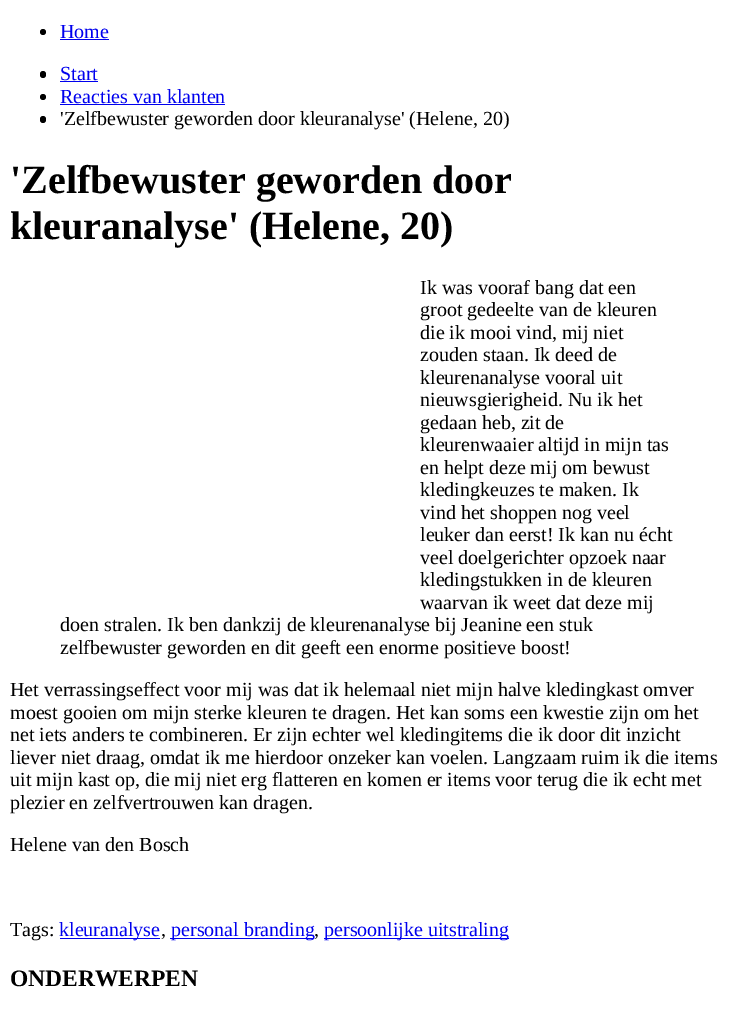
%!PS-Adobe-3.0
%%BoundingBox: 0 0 737 1010
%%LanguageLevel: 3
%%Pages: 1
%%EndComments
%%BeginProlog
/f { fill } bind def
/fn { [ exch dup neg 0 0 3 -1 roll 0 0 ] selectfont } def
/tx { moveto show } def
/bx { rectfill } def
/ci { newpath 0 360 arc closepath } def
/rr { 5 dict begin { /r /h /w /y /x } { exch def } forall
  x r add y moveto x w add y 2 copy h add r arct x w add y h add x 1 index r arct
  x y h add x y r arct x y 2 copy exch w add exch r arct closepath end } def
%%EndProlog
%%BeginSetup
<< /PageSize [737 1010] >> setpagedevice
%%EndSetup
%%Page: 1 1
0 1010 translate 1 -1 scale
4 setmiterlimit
1 setgray
0 0 737 1010 bx
0 setgray
43 32 3 ci f
/LiberationSerif-Regular 20 fn
0 0 0.933 setrgbcolor
(Home) 60 38 tx
60 39 49 1 bx
0 setgray
40 71 6 7 3 rr f
0 0 0.933 setrgbcolor
(Start) 60 80 tx
60 81 38 1 bx
0 setgray
43 97 3 ci f
0 0 0.933 setrgbcolor
(Reacties van klanten) 60 103 tx
60 104 165 1 bx
0 setgray
40 116 6 7 3 rr f
('Zelfbewuster geworden door kleuranalyse' \(Helene, 20\)) 60 125 tx
/LiberationSerif-Bold 40 fn
('Zelfbewuster geworden door) 10 193 tx
(kleuranalyse' \(Helene, 20\)) 10 239 tx
/LiberationSerif-Regular 20 fn
(Ik was vooraf bang dat een) 420 294 tx
(groot gedeelte van de kleuren) 420 316 tx
(die ik mooi vind, mij niet) 420 339 tx
(zouden staan. Ik deed de) 420 361 tx
(kleurenanalyse vooral uit) 420 384 tx
(nieuwsgierigheid. Nu ik het) 420 406 tx
(gedaan heb, zit de) 420 429 tx
(kleurenwaaier altijd in mijn tas) 420 451 tx
(en helpt deze mij om bewust) 420 474 tx
(kledingkeuzes te maken. Ik) 420 496 tx
(vind het shoppen nog veel) 420 519 tx
(leuker dan eerst! Ik kan nu écht) 420 541 tx
(veel doelgerichter opzoek naar) 420 564 tx
(kledingstukken in de kleuren) 420 586 tx
(waarvan ik weet dat deze mij) 420 609 tx
(doen stralen. Ik ben dankzij de kleurenanalyse bij Jeanine een stuk) 60 631 tx
(zelfbewuster geworden en dit geeft een enorme positieve boost!) 60 654 tx
(Het verrassingseffect voor mij was dat ik helemaal niet mijn halve kledingkast omver) 10 696 tx
(moest gooien om mijn sterke kleuren te dragen. Het kan soms een kwestie zijn om het) 10 719 tx
(net iets anders te combineren. Er zijn echter wel kledingitems die ik door dit inzicht) 10 741 tx
(liever niet draag, omdat ik me hierdoor onzeker kan voelen. Langzaam ruim ik die items) 10 764 tx
(uit mijn kast op, die mij niet erg flatteren en komen er items voor terug die ik echt met) 10 786 tx
(plezier en zelfvertrouwen kan dragen.) 10 809 tx
(Helene van den Bosch) 10 851 tx
(Tags:) 10 936 tx
0 0 0.933 setrgbcolor
60 938 100 1 bx
(kleuranalyse) 59 936 tx
0 setgray
(,) 161 936 tx
0 0 0.933 setrgbcolor
170 938 144 1 bx
(personal branding) 171 936 tx
0 setgray
(,) 314 936 tx
0 0 0.933 setrgbcolor
324 938 185 1 bx
(persoonlijke uitstraling) 324 936 tx
/LiberationSerif-Bold 23.5 fn
0 setgray
(ONDERWERPEN) 10 986 tx
showpage
%%EOF
